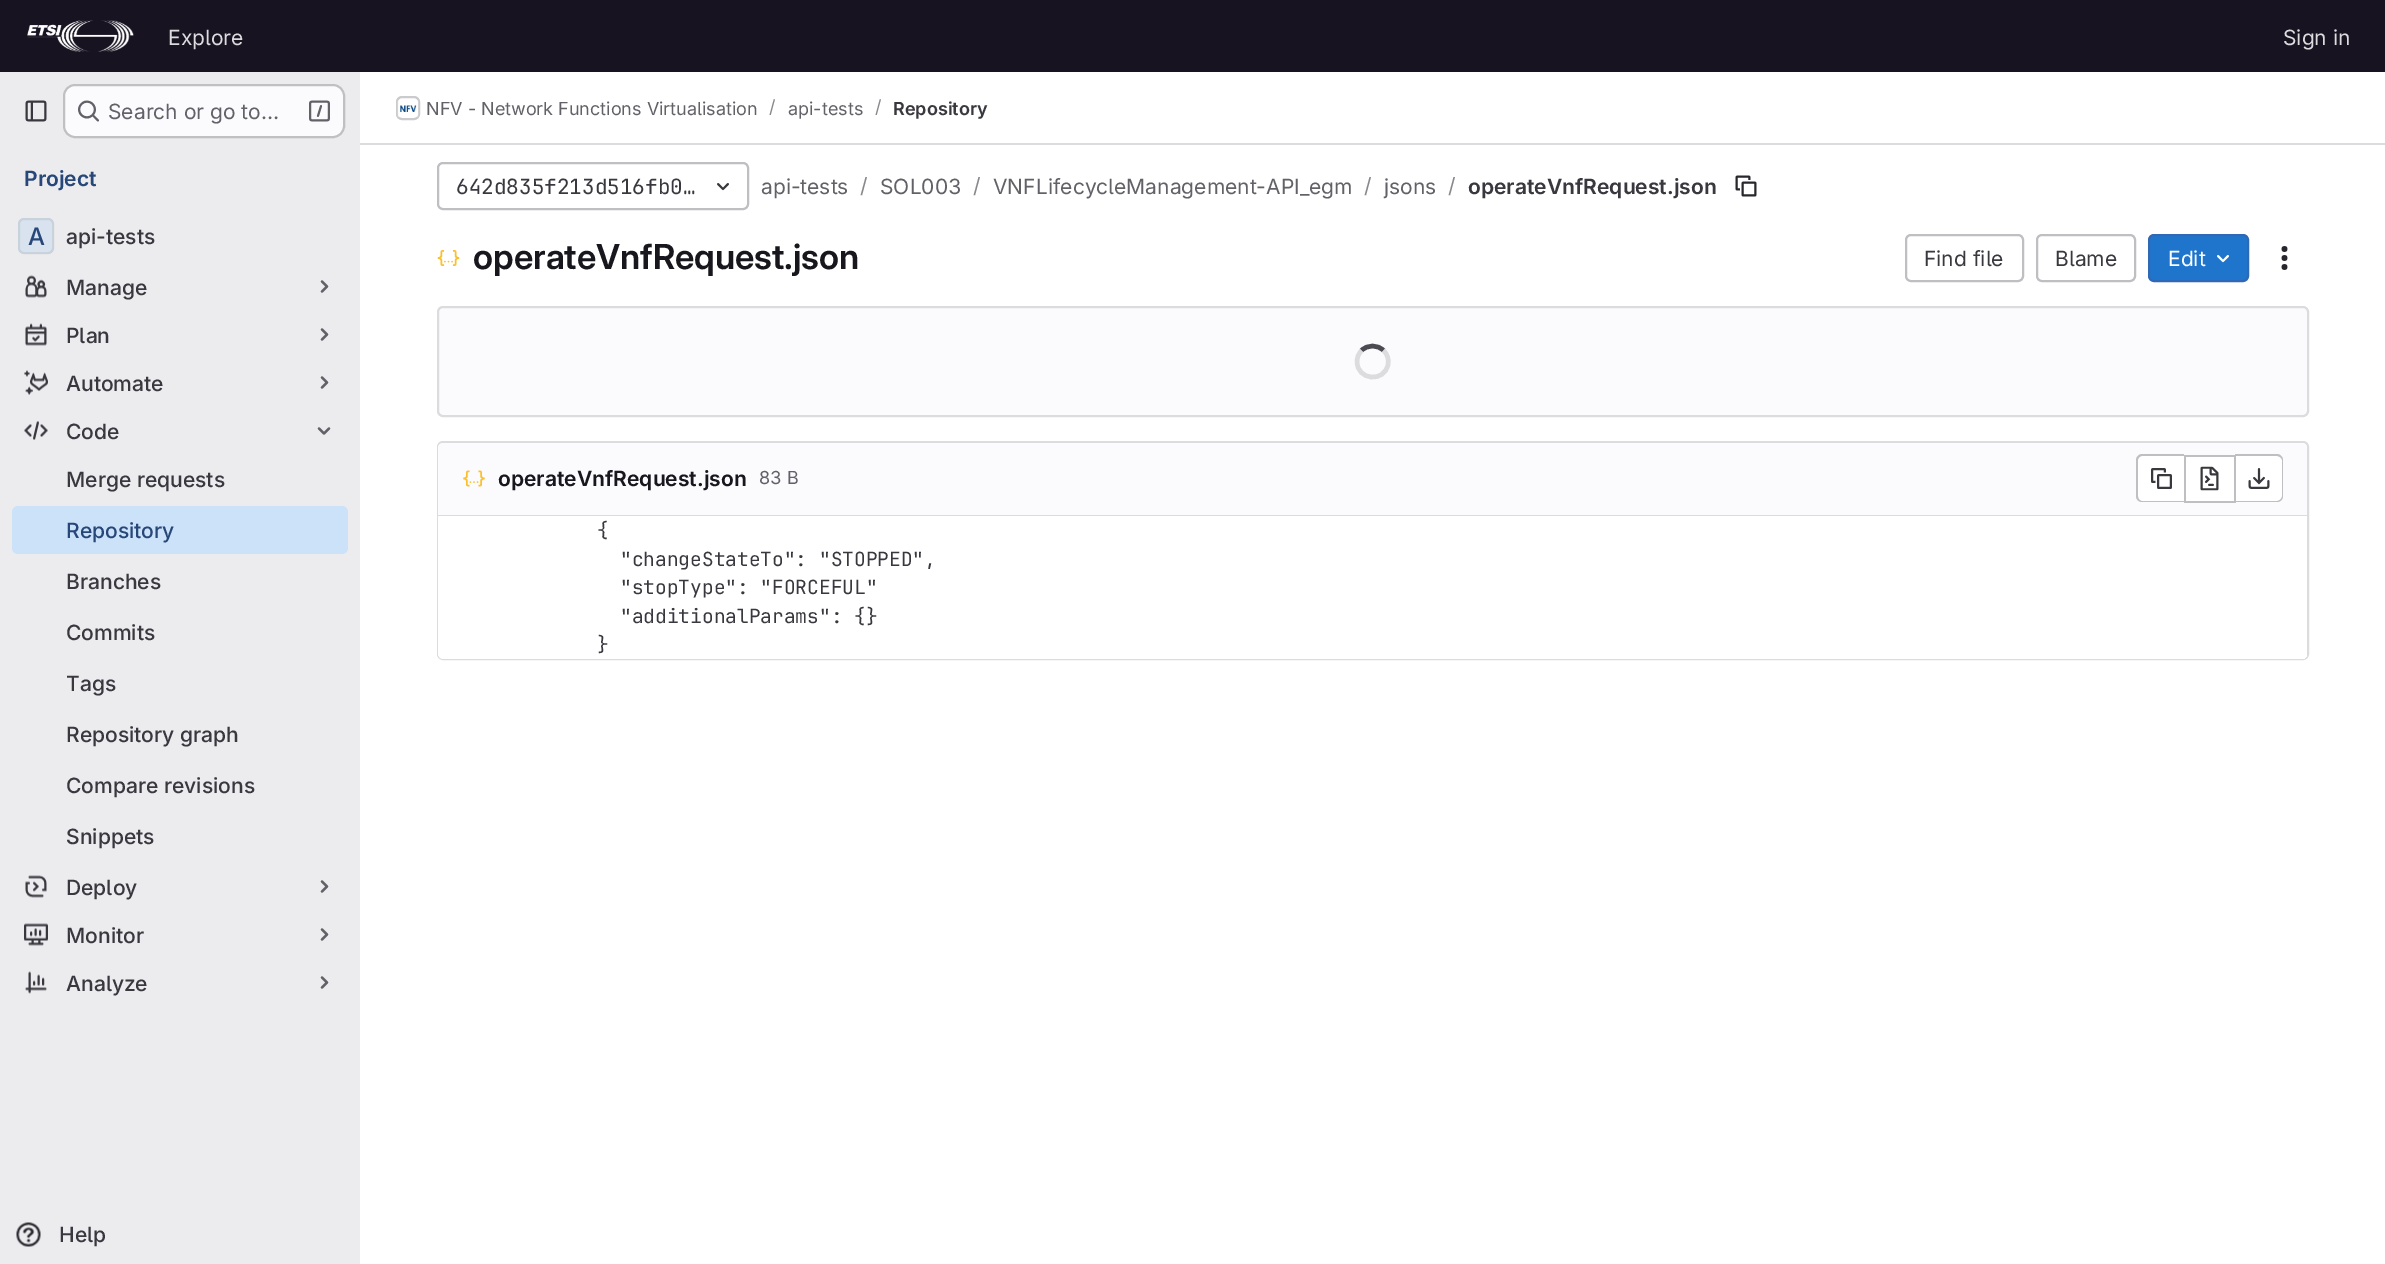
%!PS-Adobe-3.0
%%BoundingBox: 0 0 2385 1264
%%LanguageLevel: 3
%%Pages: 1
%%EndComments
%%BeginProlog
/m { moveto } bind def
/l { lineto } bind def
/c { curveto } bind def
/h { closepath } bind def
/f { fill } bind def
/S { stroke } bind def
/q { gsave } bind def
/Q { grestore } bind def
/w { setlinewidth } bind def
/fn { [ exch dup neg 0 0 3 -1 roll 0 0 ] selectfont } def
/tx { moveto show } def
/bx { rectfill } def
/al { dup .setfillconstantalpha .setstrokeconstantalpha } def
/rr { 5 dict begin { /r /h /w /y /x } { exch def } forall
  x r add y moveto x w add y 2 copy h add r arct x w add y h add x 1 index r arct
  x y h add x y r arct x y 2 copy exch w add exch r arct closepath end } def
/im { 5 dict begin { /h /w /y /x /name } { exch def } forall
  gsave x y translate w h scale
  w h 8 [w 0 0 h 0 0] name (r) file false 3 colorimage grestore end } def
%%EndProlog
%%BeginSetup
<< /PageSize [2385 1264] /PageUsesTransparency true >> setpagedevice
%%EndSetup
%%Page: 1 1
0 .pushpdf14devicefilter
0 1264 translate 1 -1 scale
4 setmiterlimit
1 setgray
0 0 2385 1264 bx
0.09 0.075 0.129 setrgbcolor
0 0 2385 72 bx
(image0.raw) 27 20 107 32 im
/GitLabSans-Regular 21 fn
0.863 0.863 0.871 setrgbcolor
(Explore) 168 45 tx
(Sign in) 2283 45 tx
0.925 0.925 0.937 setrgbcolor
0 72 360 1192 bx
(image1.raw) 25 100 22 22 im
0.984 0.98 0.992 setrgbcolor
63 84 282 54 12 rr f
0.24 al
0.02 0.02 0.024 setrgbcolor
2 w
64 85 280 52 11 rr S
1 al
(image2.raw) 78 100 21 22 im
0.384 0.38 0.408 setrgbcolor
(Search or go to…) 108 119 tx
(image3.raw) 309 100 21 22 im
/GitLabSans-SemiBold 21 fn
0.157 0.278 0.475 setrgbcolor
(Project) 24 186 tx
0.851 0.89 0.937 setrgbcolor
18 218 36 36 6 rr f
0.08 al
0.02 0.02 0.024 setrgbcolor
19 219 34 34 5 rr S
/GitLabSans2-Medium 24 fn
1 al
0.157 0.278 0.475 setrgbcolor
(A) 28 245 tx
/GitLabSans-Medium 21 fn
0.227 0.22 0.247 setrgbcolor
(api-tests) 66 244 tx
(image4.raw) 25 275 22 23 im
(Manage) 66 295 tx
0.384 0.38 0.408 setrgbcolor
2.2 w
1 setlinecap
1 setlinejoin
322 281.5 m 327 286.5 l 322 291.5 l S
(image5.raw) 25 323 22 23 im
0.227 0.22 0.247 setrgbcolor
(Plan) 66 343 tx
0.384 0.38 0.408 setrgbcolor
322 329.5 m 327 334.5 l 322 339.5 l S
(image6.raw) 24 370 24 25 im
0.227 0.22 0.247 setrgbcolor
(Automate) 66 391 tx
0.384 0.38 0.408 setrgbcolor
322 377.5 m 327 382.5 l 322 387.5 l S
(image7.raw) 24 421 24 19 im
0.227 0.22 0.247 setrgbcolor
(Code) 66 439 tx
0.384 0.38 0.408 setrgbcolor
329 428.5 m 324 433.5 l 319 428.5 l S
0.227 0.22 0.247 setrgbcolor
(Merge requests) 66 487 tx
0.796 0.886 0.976 setrgbcolor
12 506 336 48 6 rr f
0.157 0.278 0.475 setrgbcolor
(Repository) 66 538 tx
0.227 0.22 0.247 setrgbcolor
(Branches) 66 589 tx
(Commits) 66 640 tx
(Tags) 66 691 tx
(Repository graph) 66 742 tx
(Compare revisions) 66 793 tx
(Snippets) 66 844 tx
(image8.raw) 25 875 22 23 im
(Deploy) 66 895 tx
0.384 0.38 0.408 setrgbcolor
322 881.5 m 327 886.5 l 322 891.5 l S
(image9.raw) 24 923 24 23 im
0.227 0.22 0.247 setrgbcolor
(Monitor) 66 943 tx
0.384 0.38 0.408 setrgbcolor
322 929.5 m 327 934.5 l 322 939.5 l S
(image10.raw) 25 971 22 23 im
0.227 0.22 0.247 setrgbcolor
(Analyze) 66 991 tx
0.384 0.38 0.408 setrgbcolor
322 977.5 m 327 982.5 l 322 987.5 l S
(image11.raw) 16 1222 25 25 im
0.227 0.22 0.247 setrgbcolor
(Help) 59 1242 tx
0.863 0.863 0.871 setrgbcolor
360 143 2025 2 bx
2 w
0 setlinecap
0 setlinejoin
397 97 22 22 5 rr S
(image12.raw) 397 100 22 17 im
0.08 al
0.02 0.02 0.024 setrgbcolor
397 97 22 22 5 rr S
/GitLabSans-Regular 18 fn
1 al
0.384 0.38 0.408 setrgbcolor
(NFV - Network Functions Virtualisation) 426 115 tx
0.537 0.533 0.553 setrgbcolor
(/) 769 113 tx
0.384 0.38 0.408 setrgbcolor
(api-tests) 788 115 tx
0.537 0.533 0.553 setrgbcolor
(/) 875 113 tx
/GitLabSans-SemiBold 18 fn
0.227 0.22 0.247 setrgbcolor
(Repository) 893 115 tx
0.749 0.749 0.765 setrgbcolor
438 163 310 46 5 rr S
/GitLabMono-Regular 21 fn
0.227 0.22 0.247 setrgbcolor
(642d835f213d516fb0…) 456 194 tx
(image13.raw) 717 183 12 8 im
/GitLabSans-Regular 21 fn
0.384 0.38 0.408 setrgbcolor
(api-tests) 761 194 tx
0.537 0.533 0.553 setrgbcolor
(/) 860 193 tx
0.384 0.38 0.408 setrgbcolor
(SOL003) 880 194 tx
0.537 0.533 0.553 setrgbcolor
(/) 973 193 tx
0.384 0.38 0.408 setrgbcolor
(VNFLifecycleManagement-API_egm) 993 194 tx
0.537 0.533 0.553 setrgbcolor
(/) 1364 193 tx
0.384 0.38 0.408 setrgbcolor
(jsons) 1384 194 tx
0.537 0.533 0.553 setrgbcolor
(/) 1448 193 tx
/GitLabSans-SemiBold 21 fn
0.227 0.22 0.247 setrgbcolor
(operateVnfRequest.json) 1468 194 tx
(image14.raw) 1735 175 22 22 im
(image15.raw) 437 250 23 16 im
/GitLabSans2-SemiBold 34.5 fn
0.094 0.09 0.114 setrgbcolor
(operateVnfRequest.json) 473 269 tx
0.749 0.749 0.765 setrgbcolor
1906 235 117 46 5 rr S
/GitLabSans-Regular 21 fn
0.227 0.22 0.247 setrgbcolor
(Find file) 1924 266 tx
0.749 0.749 0.765 setrgbcolor
2037 235 98 46 5 rr S
0.227 0.22 0.247 setrgbcolor
(Blame) 2055 266 tx
0.122 0.459 0.796 setrgbcolor
2149 235 99 46 5 rr q f Q
0.184 0.408 0.706 setrgbcolor
S
1 setgray
(Edit) 2168 266 tx
(image16.raw) 2217 255 12 8 im
(image17.raw) 2281 246 7 24 im
0.984 0.98 0.992 setrgbcolor
438 307 1870 109 5 rr q f Q
0.863 0.863 0.871 setrgbcolor
S
0.298 0.294 0.318 setrgbcolor
4.5 w
1361.5 350.5 m 1367.5 344.5 1377.5 344.5 1383.5 350.5 c S
0.863 0.863 0.871 setrgbcolor
1383.5 350.5 m 1387.5 354 1389 359.5 1388 364.5 c 1384.5 383 1357 380.5 1357 361.5 c 1357 357.5 1358.5 353.5 1361.5 350.5 c S
2 w
438 442 1870 217 5 rr S
0.984 0.98 0.992 setrgbcolor
443 443 m 2302 443 l 2305 443 2307 445 2307 448 c 2307 516 l 438 516 l 438 448 l 438 445 440 443 443 443 c h f
0.863 0.863 0.871 setrgbcolor
438 515 1869 1 bx
(image18.raw) 463 470 22 17 im
/GitLabSans-SemiBold 21 fn
0.094 0.09 0.114 setrgbcolor
(operateVnfRequest.json) 498 486 tx
/GitLabSans-Regular 18 fn
0.384 0.38 0.408 setrgbcolor
(83 B) 759 484 tx
1 setgray
2143 456 m 2184 456 l 2184 501 l 2143 501 l 2140 501 2138 499 2138 496 c 2138 461 l 2138 458 2140 456 2143 456 c h f
0.749 0.749 0.765 setrgbcolor
2142 454 m 2184 454 l 2184 502 l 2142 502 l 2139 502 2136 500 2136 496 c 2136 460 l 2136 457 2139 454 2142 454 c h 2142 456 m 2184 456 l 2184 501 l 2142 501 l 2140 501 2138 499 2138 496 c 2138 460 l 2138 458 2140 456 2142 456 c h eofill
(image19.raw) 2151 468 21 21 im
1 setgray
2186 457 48 44 bx
0.749 0.749 0.765 setrgbcolor
2186 455 48 2 bx
2186 501 48 2 bx
2184 455 2 48 bx
(image20.raw) 2200 466 19 25 im
1 setgray
2235 456 m 2277 456 l 2280 456 2282 458 2282 461 c 2282 496 l 2282 499 2280 501 2277 501 c 2235 501 l h f
0.749 0.749 0.765 setrgbcolor
2235 454 m 2277 454 l 2280 454 2283 457 2283 460 c 2283 496 l 2283 500 2280 502 2277 502 c 2235 502 l h 2235 456 m 2277 456 l 2279 456 2282 458 2282 460 c 2282 496 l 2282 499 2279 501 2277 501 c 2235 501 l h eofill
2234 455 2 48 bx
(image21.raw) 2248 468 22 21 im
1 setgray
438 516 m 2307 516 l 2307 653 l 2307 656.5 2304.5 659 2301 659 c 444 659 l 440.5 659 438 656.5 438 653 c h f
438 516 m 582 516 l 582 659 l 444 659 l 440.5 659 438 656.5 438 653 c h f
594 516 m 2307 516 l 2307 653 l 2307 656.5 2304.5 659 2301 659 c 594 659 l h f
q
438 516 m 2307 516 l 2307 653 l 2307 656.5 2304.5 659 2301 659 c 444 659 l 440.5 659 438 656.5 438 653 c h clip newpath
597 516 1713 143 6 rr f
Q
/GitLabMono-Regular 19.5 fn
0.227 0.22 0.247 setrgbcolor
({) 597 537 tx
("changeStateTo": "STOPPED",) 620 566 tx
("stopType": "FORCEFUL") 620 594 tx
("additionalParams": {}) 620 623 tx
(}) 597 651 tx
.poppdf14devicefilter showpage
%%EOF
